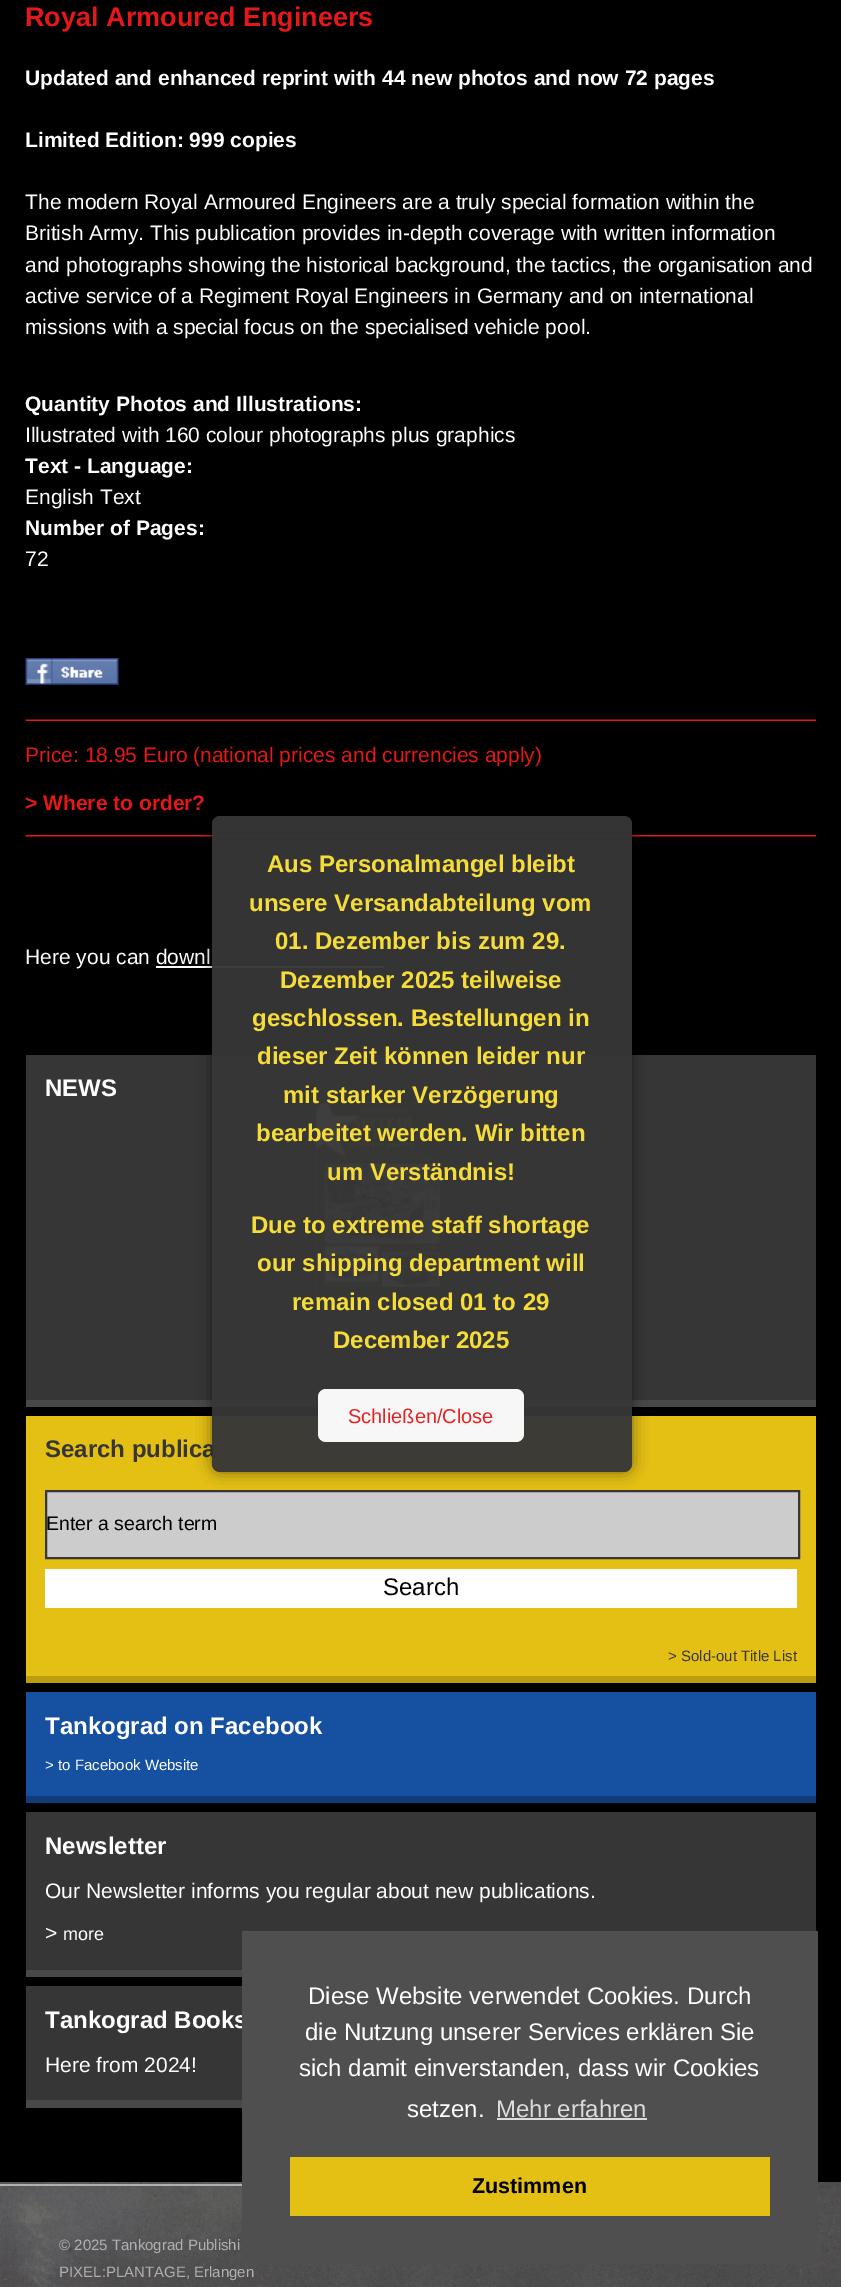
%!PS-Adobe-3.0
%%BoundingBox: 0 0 841 2287
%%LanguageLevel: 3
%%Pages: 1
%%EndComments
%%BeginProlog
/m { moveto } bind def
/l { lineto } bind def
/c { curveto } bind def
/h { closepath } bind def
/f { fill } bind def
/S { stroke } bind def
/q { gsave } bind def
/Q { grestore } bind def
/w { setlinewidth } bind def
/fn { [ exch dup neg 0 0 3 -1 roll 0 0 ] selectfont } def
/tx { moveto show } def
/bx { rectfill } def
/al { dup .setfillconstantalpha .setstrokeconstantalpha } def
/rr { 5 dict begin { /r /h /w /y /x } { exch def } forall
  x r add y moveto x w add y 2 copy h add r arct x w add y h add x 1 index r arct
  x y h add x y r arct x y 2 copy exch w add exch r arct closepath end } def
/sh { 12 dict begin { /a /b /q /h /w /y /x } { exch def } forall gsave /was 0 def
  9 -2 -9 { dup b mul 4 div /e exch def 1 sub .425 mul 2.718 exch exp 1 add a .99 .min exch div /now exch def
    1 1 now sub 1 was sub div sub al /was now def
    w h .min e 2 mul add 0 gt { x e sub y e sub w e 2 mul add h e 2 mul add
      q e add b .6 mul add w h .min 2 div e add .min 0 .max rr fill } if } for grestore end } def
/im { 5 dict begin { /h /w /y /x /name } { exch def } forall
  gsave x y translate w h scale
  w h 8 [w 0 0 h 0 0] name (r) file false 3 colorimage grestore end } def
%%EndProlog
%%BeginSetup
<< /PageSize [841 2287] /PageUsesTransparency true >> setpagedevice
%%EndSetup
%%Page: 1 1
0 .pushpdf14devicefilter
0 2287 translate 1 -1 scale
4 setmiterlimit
0 setgray
0 0 841 2287 bx
/LiberationSans-Bold 27 fn
0.894 0.094 0.094 setrgbcolor
(Royal Armoured Engineers) 25 26 tx
/LiberationSans-Bold 21 fn
1 setgray
(Updated and enhanced reprint with 44 new photos and now 72 pages) 25 85 tx
(Limited Edition: 999 copies) 25 147 tx
/LiberationSans-Regular 21 fn
(The modern Royal Armoured Engineers are a truly special formation within the) 25 209 tx
(British Army. This publication provides in-depth coverage with written information) 25 240 tx
(and photographs showing the historical background, the tactics, the organisation and) 25 272 tx
(active service of a Regiment Royal Engineers in Germany and on international) 25 303 tx
(missions with a special focus on the specialised vehicle pool.) 25 334 tx
/LiberationSans-Bold 21 fn
(Quantity Photos and Illustrations:) 25 411 tx
/LiberationSans-Regular 21 fn
(Illustrated with 160 colour photographs plus graphics) 25 442 tx
/LiberationSans-Bold 21 fn
(Text - Language:) 25 473 tx
/LiberationSans-Regular 21 fn
(English Text) 25 504 tx
/LiberationSans-Bold 21 fn
(Number of Pages:) 25 535 tx
/LiberationSans-Regular 21 fn
(72) 25 566 tx
(image0.raw) 25 658 94 27 im
(image1.raw) 25 719 791 2 im
0.894 0.094 0.094 setrgbcolor
(Price: 18.95 Euro \(national prices and currencies apply\)) 25 762 tx
/LiberationSans-Bold 21 fn
(> Where to order?) 25 810 tx
(image2.raw) 25 835 791 2 im
/LiberationSans-Regular 21 fn
1 setgray
(Here you can downl) 25 964 tx
156 966 228 2 bx
0.212 setgray
26 1055 790 345 bx
/LiberationSans-Bold 24 fn
1 setgray
(NEWS) 45 1096 tx
(image3.raw) 463 1069 26 27 im
(image4.raw) 498 1069 27 27 im
0.329 0.329 0.337 setrgbcolor
2 w
316 1104 135 193 rectstroke
(image5.raw) 316 1103 134 193 im
0.282 setgray
26 1400 790 7 bx
0.894 0.749 0.078 setrgbcolor
26 1416 790 260 bx
0.212 setgray
(Search publica) 45 1457 tx
0.8 setgray
46 1491 m 799 1491 l 799 1558 l 46 1558 l h q f Q
0.212 setgray
S
/LiberationSans-Regular 19.5 fn
0 setgray
(Enter a search term) 46 1530 tx
1 setgray
45 1569 752 39 bx
/LiberationSans-Regular 24 fn
0 setgray
(Search) 383 1595 tx
/LiberationSans-Regular 15 fn
0.212 setgray
(> Sold-out Title List) 668 1661 tx
0.737 0.616 0.063 setrgbcolor
26 1676 790 7 bx
0.082 0.314 0.631 setrgbcolor
26 1692 790 104 bx
/LiberationSans-Bold 24 fn
1 setgray
(Tankograd on Facebook) 45 1734 tx
/LiberationSans-Regular 15 fn
(> to Facebook Website) 45 1770 tx
0.063 0.235 0.475 setrgbcolor
26 1796 790 7 bx
0.212 setgray
26 1812 790 158 bx
/LiberationSans-Bold 24 fn
1 setgray
(Newsletter) 45 1854 tx
/LiberationSans-Regular 21 fn
(Our Newsletter informs you regular about new publications.) 45 1898 tx
(>) 45 1940 tx
/LiberationSans-Regular 18 fn
(more) 63 1940 tx
0.282 setgray
26 1970 216 7 bx
0.212 setgray
26 1986 216 114 bx
/LiberationSans-Bold 24 fn
1 setgray
(Tankograd Books) 45 2028 tx
/LiberationSans-Regular 21 fn
(Here from 2024!) 45 2072 tx
0.282 setgray
26 2100 216 8 bx
(image6.raw) 0 2182 841 105 im
0.69 setgray
0 2184 242 2 bx
/LiberationSans-Regular 15 fn
(© 2025 Tankograd Publishi) 59 2250 tx
(PIXEL:PLANTAGE, Erlangen) 59 2277 tx
q
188 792 m 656 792 l 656 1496 l 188 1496 l h 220 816 m 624 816 l 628.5 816 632 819.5 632 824 c 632 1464 l 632 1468.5 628.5 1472 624 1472 c 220 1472 l 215.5 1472 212 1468.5 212 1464 c 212 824 l 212 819.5 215.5 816 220 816 c h eoclip newpath
0 setgray
212 816 420 656 8 7.5 0.48 sh
Q
0.96 al
0.212 setgray
212 816 420 656 8 rr f
/LiberationSans-Bold 24 fn
1 al
0.961 0.863 0.22 setrgbcolor
(Aus Personalmangel bleibt) 267 872 tx
(unsere Versandabteilung vom) 249 911 tx
(01. Dezember bis zum 29.) 275 949 tx
(Dezember 2025 teilweise) 280 988 tx
(geschlossen. Bestellungen in) 252 1026 tx
(dieser Zeit können leider nur) 257 1064 tx
(mit starker Verzögerung) 283 1103 tx
(bearbeitet werden. Wir bitten) 256 1141 tx
(um Verständnis!) 327 1180 tx
(Due to extreme staff shortage) 251 1233 tx
(our shipping department will) 257 1271 tx
(remain closed 01 to 29) 292 1310 tx
(December 2025) 333 1348 tx
0.96 al
1 setgray
318 1389 206 53 8 rr f
/LiberationSans-Regular 20 fn
1 al
0.898 0.129 0.129 setrgbcolor
(Schließen/Close) 348 1423 tx
0.31 setgray
242 1931 576 333 bx
/LiberationSans-Regular 24 fn
1 setgray
(Diese Website verwendet Cookies. Durch) 308 2004 tx
(die Nutzung unserer Services erklären Sie) 305 2040 tx
(sich damit einverstanden, dass wir Cookies) 299 2076 tx
(setzen.) 407 2117 tx
0.863 setgray
(Mehr erfahren) 496 2117 tx
497 2118 150 2 bx
0.894 0.749 0.078 setrgbcolor
290 2157 480 59 bx
/LiberationSans-Bold 21.5 fn
0 setgray
(Zustimmen) 472 2193 tx
.poppdf14devicefilter showpage
%%EOF
